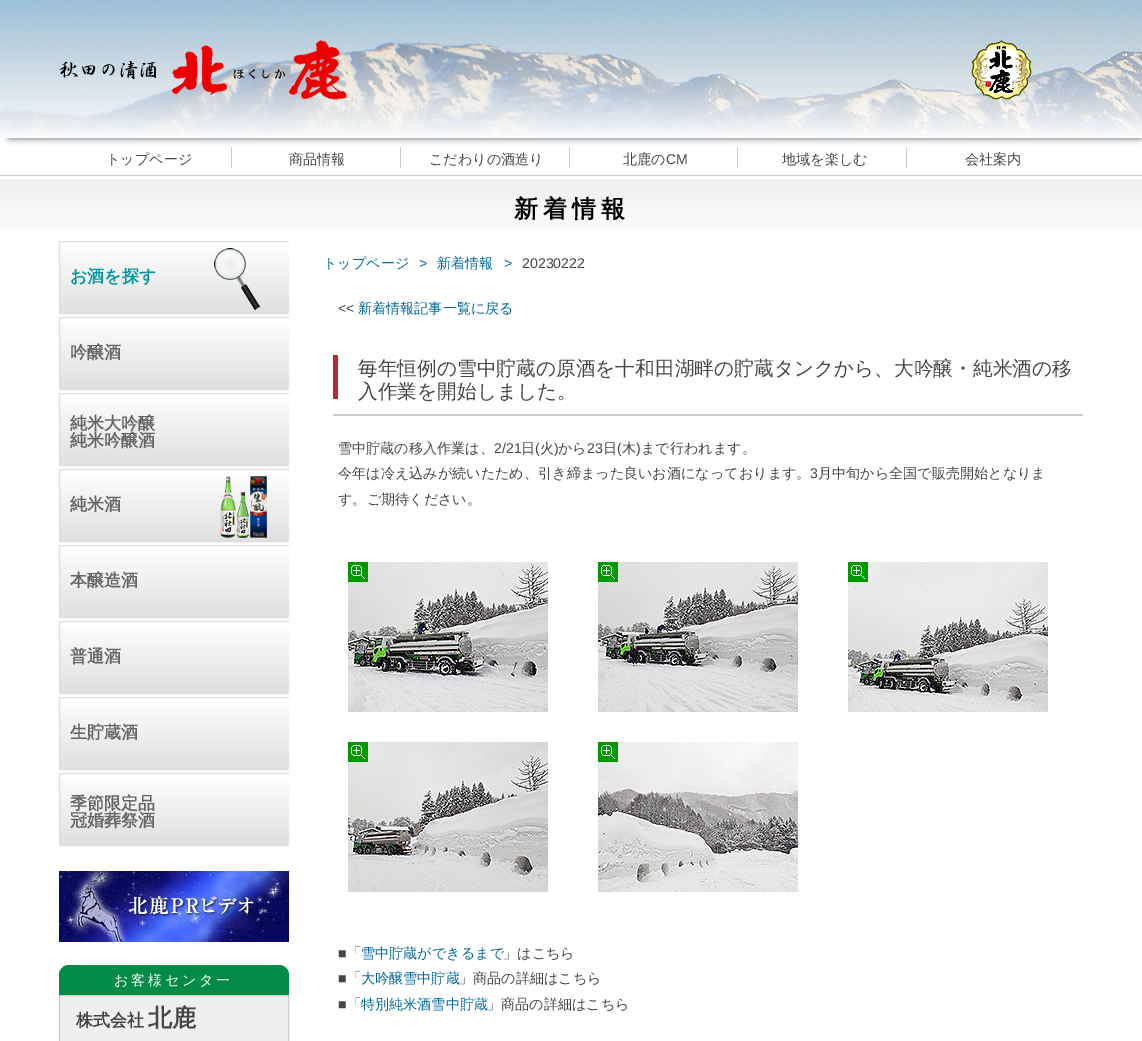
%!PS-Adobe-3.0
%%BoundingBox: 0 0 1142 1041
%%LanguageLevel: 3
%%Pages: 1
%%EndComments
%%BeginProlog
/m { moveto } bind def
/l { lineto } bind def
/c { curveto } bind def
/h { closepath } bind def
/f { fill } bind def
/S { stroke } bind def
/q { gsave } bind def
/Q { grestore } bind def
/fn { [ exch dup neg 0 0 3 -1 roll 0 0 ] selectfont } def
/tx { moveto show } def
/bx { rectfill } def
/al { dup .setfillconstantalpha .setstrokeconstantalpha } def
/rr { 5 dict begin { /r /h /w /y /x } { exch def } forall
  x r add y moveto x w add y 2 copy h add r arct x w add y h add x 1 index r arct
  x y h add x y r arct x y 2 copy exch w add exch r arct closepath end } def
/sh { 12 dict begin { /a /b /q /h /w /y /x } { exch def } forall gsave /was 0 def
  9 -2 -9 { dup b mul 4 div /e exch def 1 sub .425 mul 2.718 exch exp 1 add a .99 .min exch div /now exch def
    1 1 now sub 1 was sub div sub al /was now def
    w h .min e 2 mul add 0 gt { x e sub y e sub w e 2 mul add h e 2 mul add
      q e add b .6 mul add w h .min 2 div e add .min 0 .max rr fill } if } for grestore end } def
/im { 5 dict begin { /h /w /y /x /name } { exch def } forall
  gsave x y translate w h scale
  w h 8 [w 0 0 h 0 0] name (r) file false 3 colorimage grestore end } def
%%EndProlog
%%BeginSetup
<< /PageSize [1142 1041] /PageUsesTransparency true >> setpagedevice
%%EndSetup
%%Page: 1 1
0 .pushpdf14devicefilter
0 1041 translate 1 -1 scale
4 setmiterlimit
1 setgray
0 0 1142 1041 bx
0.471 setgray
9 9 1132 130 0 3 1 sh
(image0.raw) 0 0 1142 138 im
(image1.raw) 59 40 288 60 im
(image2.raw) 971 40 61 60 im
0.8 setgray
0 175 1142 1 bx
231 147 1 21 bx
/WenQuanYiZenHei-Medium 14.1 fn
0.271 setgray
(トップページ) 106 164 tx
0.8 setgray
400 147 1 21 bx
0.271 setgray
(商品情報) 289 164 tx
0.8 setgray
569 147 1 21 bx
0.271 setgray
(こだわりの酒造り) 429 164 tx
0.8 setgray
737 147 1 21 bx
0.271 setgray
(北鹿の) 623 164 tx
/LiberationSans-Regular 14.1 fn
(CM) 666 164 tx
0.8 setgray
906 147 1 21 bx
/WenQuanYiZenHei-Medium 14.1 fn
0.271 setgray
(地域を楽しむ) 782 164 tx
(会社案内) 965 164 tx
q 0 179 m 1142 179 l 1142 231 l 0 231 l h clip newpath
<< /ShadingType 2 /ColorSpace /DeviceRGB /Coords [571 179 571 241] /Extend [true true] /Function << /FunctionType 2 /Domain [0 1] /C0 [0.937 0.937 0.937] /C1 [1 1 1] /N 1 >> >> shfill Q
/WenQuanYiZenHei-Bold 24 fn
0 setgray
514 217 m 5 0 (新着情報) ashow
(image3.raw) 60 242 229 71 im
q
59 241 230 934 rectclip
0.867 setgray
59.5 241.5 231 72 rectstroke
Q
/WenQuanYiZenHei-Bold 17 fn
0 0.596 0.62 setrgbcolor
(お酒を探す) 70 282 tx
q 60 324 m 289 324 l 289 389 l 60 389 l h clip newpath
<< /ShadingType 2 /ColorSpace /DeviceRGB /Coords [175 318 175 389] /Extend [true true] /Function << /FunctionType 2 /Domain [0 1] /C0 [1 1 1] /C1 [0.875 0.875 0.875] /N 1 >> >> shfill Q
q
59 241 230 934 rectclip
0.867 setgray
59.5 317.5 231 72 rectstroke
Q
0.396 setgray
(吟醸酒) 70 358 tx
q 60 400 m 289 400 l 289 465 l 60 465 l h clip newpath
<< /ShadingType 2 /ColorSpace /DeviceRGB /Coords [175 394 175 465] /Extend [true true] /Function << /FunctionType 2 /Domain [0 1] /C0 [1 1 1] /C1 [0.875 0.875 0.875] /N 1 >> >> shfill Q
q
59 241 230 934 rectclip
0.867 setgray
59.5 393.5 231 72 rectstroke
Q
(純米大吟醸) 70 429 tx
(純米吟醸酒) 70 446 tx
(image4.raw) 60 470 229 71 im
q
59 241 230 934 rectclip
0.867 setgray
59.5 469.5 231 72 rectstroke
Q
(純米酒) 70 510 tx
q 60 552 m 289 552 l 289 617 l 60 617 l h clip newpath
<< /ShadingType 2 /ColorSpace /DeviceRGB /Coords [175 546 175 617] /Extend [true true] /Function << /FunctionType 2 /Domain [0 1] /C0 [1 1 1] /C1 [0.875 0.875 0.875] /N 1 >> >> shfill Q
q
59 241 230 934 rectclip
0.867 setgray
59.5 545.5 231 72 rectstroke
Q
(本醸造酒) 70 586 tx
q 60 628 m 289 628 l 289 693 l 60 693 l h clip newpath
<< /ShadingType 2 /ColorSpace /DeviceRGB /Coords [175 622 175 693] /Extend [true true] /Function << /FunctionType 2 /Domain [0 1] /C0 [1 1 1] /C1 [0.875 0.875 0.875] /N 1 >> >> shfill Q
q
59 241 230 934 rectclip
0.867 setgray
59.5 621.5 231 72 rectstroke
Q
(普通酒) 70 662 tx
q 60 704 m 289 704 l 289 769 l 60 769 l h clip newpath
<< /ShadingType 2 /ColorSpace /DeviceRGB /Coords [175 698 175 769] /Extend [true true] /Function << /FunctionType 2 /Domain [0 1] /C0 [1 1 1] /C1 [0.875 0.875 0.875] /N 1 >> >> shfill Q
q
59 241 230 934 rectclip
0.867 setgray
59.5 697.5 231 72 rectstroke
Q
(生貯蔵酒) 70 738 tx
q 60 780 m 289 780 l 289 845 l 60 845 l h clip newpath
<< /ShadingType 2 /ColorSpace /DeviceRGB /Coords [175 774 175 845] /Extend [true true] /Function << /FunctionType 2 /Domain [0 1] /C0 [1 1 1] /C1 [0.875 0.875 0.875] /N 1 >> >> shfill Q
q
59 241 230 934 rectclip
0.867 setgray
59.5 773.5 231 72 rectstroke
Q
(季節限定品) 70 809 tx
(冠婚葬祭酒) 70 826 tx
(image5.raw) 59 871 230 71 im
0 0.549 0.275 setrgbcolor
69 965 m 279 965 l 284.5 965 289 969.5 289 975 c 289 995 l 59 995 l 59 975 l 59 969.5 63.5 965 69 965 c h f
/WenQuanYiZenHei-Medium 14.1 fn
1 setgray
114 985 m 2.75 0 (お客様センター) ashow
0.937 setgray
59.5 995.5 m 288.5 995.5 l 288.5 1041.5 l 59.5 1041.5 l h q f Q
0.8 setgray
S
/WenQuanYiZenHei-Bold 17 fn
0.271 setgray
(株式会社) 76 1026 tx
/WenQuanYiZenHei-Bold 24 fn
(北鹿) 148 1026 tx
/WenQuanYiZenHei-Medium 14.1 fn
0 0.4 0.6 setrgbcolor
(トップページ) 323 268 tx
/LiberationSans-Regular 14.1 fn
(>) 419 268 tx
/WenQuanYiZenHei-Medium 14.1 fn
(新着情報) 437 268 tx
/LiberationSans-Regular 14.1 fn
(>) 504 268 tx
0.271 setgray
(20230222) 522 268 tx
(<<) 338 313 tx
/WenQuanYiZenHei-Medium 14.1 fn
0 0.4 0.6 setrgbcolor
(新着情報記事一覧に戻る) 358 313 tx
0.8 setgray
333 414 750 2 bx
0.725 0.165 0.173 setrgbcolor
333 355 5 44 bx
/WenQuanYiZenHei-Medium 19.7 fn
0.271 setgray
(毎年恒例の雪中貯蔵の原酒を十和田湖畔の貯蔵タンクから、大吟醸・純米酒の移) 358 375 tx
(入作業を開始しました。) 358 398 tx
/WenQuanYiZenHei-Medium 14.1 fn
(雪中貯蔵の移入作業は、) 338 453 tx
/LiberationSans-Regular 14.1 fn
(2/21) 494 453 tx
/WenQuanYiZenHei-Medium 14.1 fn
(日) 521 453 tx
/LiberationSans-Regular 14.1 fn
(\() 535 453 tx
/WenQuanYiZenHei-Medium 14.1 fn
(火) 540 453 tx
/LiberationSans-Regular 14.1 fn
(\)) 554 453 tx
/WenQuanYiZenHei-Medium 14.1 fn
(から) 558 453 tx
/LiberationSans-Regular 14.1 fn
(23) 587 453 tx
/WenQuanYiZenHei-Medium 14.1 fn
(日) 603 453 tx
/LiberationSans-Regular 14.1 fn
(\() 617 453 tx
/WenQuanYiZenHei-Medium 14.1 fn
(木) 622 453 tx
/LiberationSans-Regular 14.1 fn
(\)) 636 453 tx
/WenQuanYiZenHei-Medium 14.1 fn
(まで行われます。) 641 453 tx
(今年は冷え込みが続いたため、引き締まった良いお酒になっております。) 338 478 tx
/LiberationSans-Regular 14.1 fn
(3) 810 478 tx
/WenQuanYiZenHei-Medium 14.1 fn
(月中旬から全国で販売開始となりま) 818 478 tx
(す。ご期待ください。) 338 504 tx
(image6.raw) 348 562 200 150 im
(image7.raw) 348 562 20 20 im
(image8.raw) 598 562 200 150 im
(image7.raw) 598 562 20 20 im
(image9.raw) 848 562 200 150 im
(image7.raw) 848 562 20 20 im
(image10.raw) 348 742 200 150 im
(image7.raw) 348 742 20 20 im
(image11.raw) 598 742 200 150 im
(image7.raw) 598 742 20 20 im
/LiberationSans-Regular 14.1 fn
(■) 338 958 tx
/WenQuanYiZenHei-Medium 14.1 fn
(「) 347 958 tx
0 0.4 0.6 setrgbcolor
(雪中貯蔵ができるまで) 361 958 tx
0.271 setgray
(」はこちら) 503 958 tx
/LiberationSans-Regular 14.1 fn
(■) 338 983 tx
/WenQuanYiZenHei-Medium 14.1 fn
(「) 347 983 tx
0 0.4 0.6 setrgbcolor
(大吟醸雪中貯蔵) 361 983 tx
0.271 setgray
(」商品の詳細はこちら) 459 983 tx
/LiberationSans-Regular 14.1 fn
(■) 338 1009 tx
/WenQuanYiZenHei-Medium 14.1 fn
(「) 347 1009 tx
0 0.4 0.6 setrgbcolor
(特別純米酒雪中貯蔵) 361 1009 tx
0.271 setgray
(」商品の詳細はこちら) 487 1009 tx
.poppdf14devicefilter showpage
%%EOF
